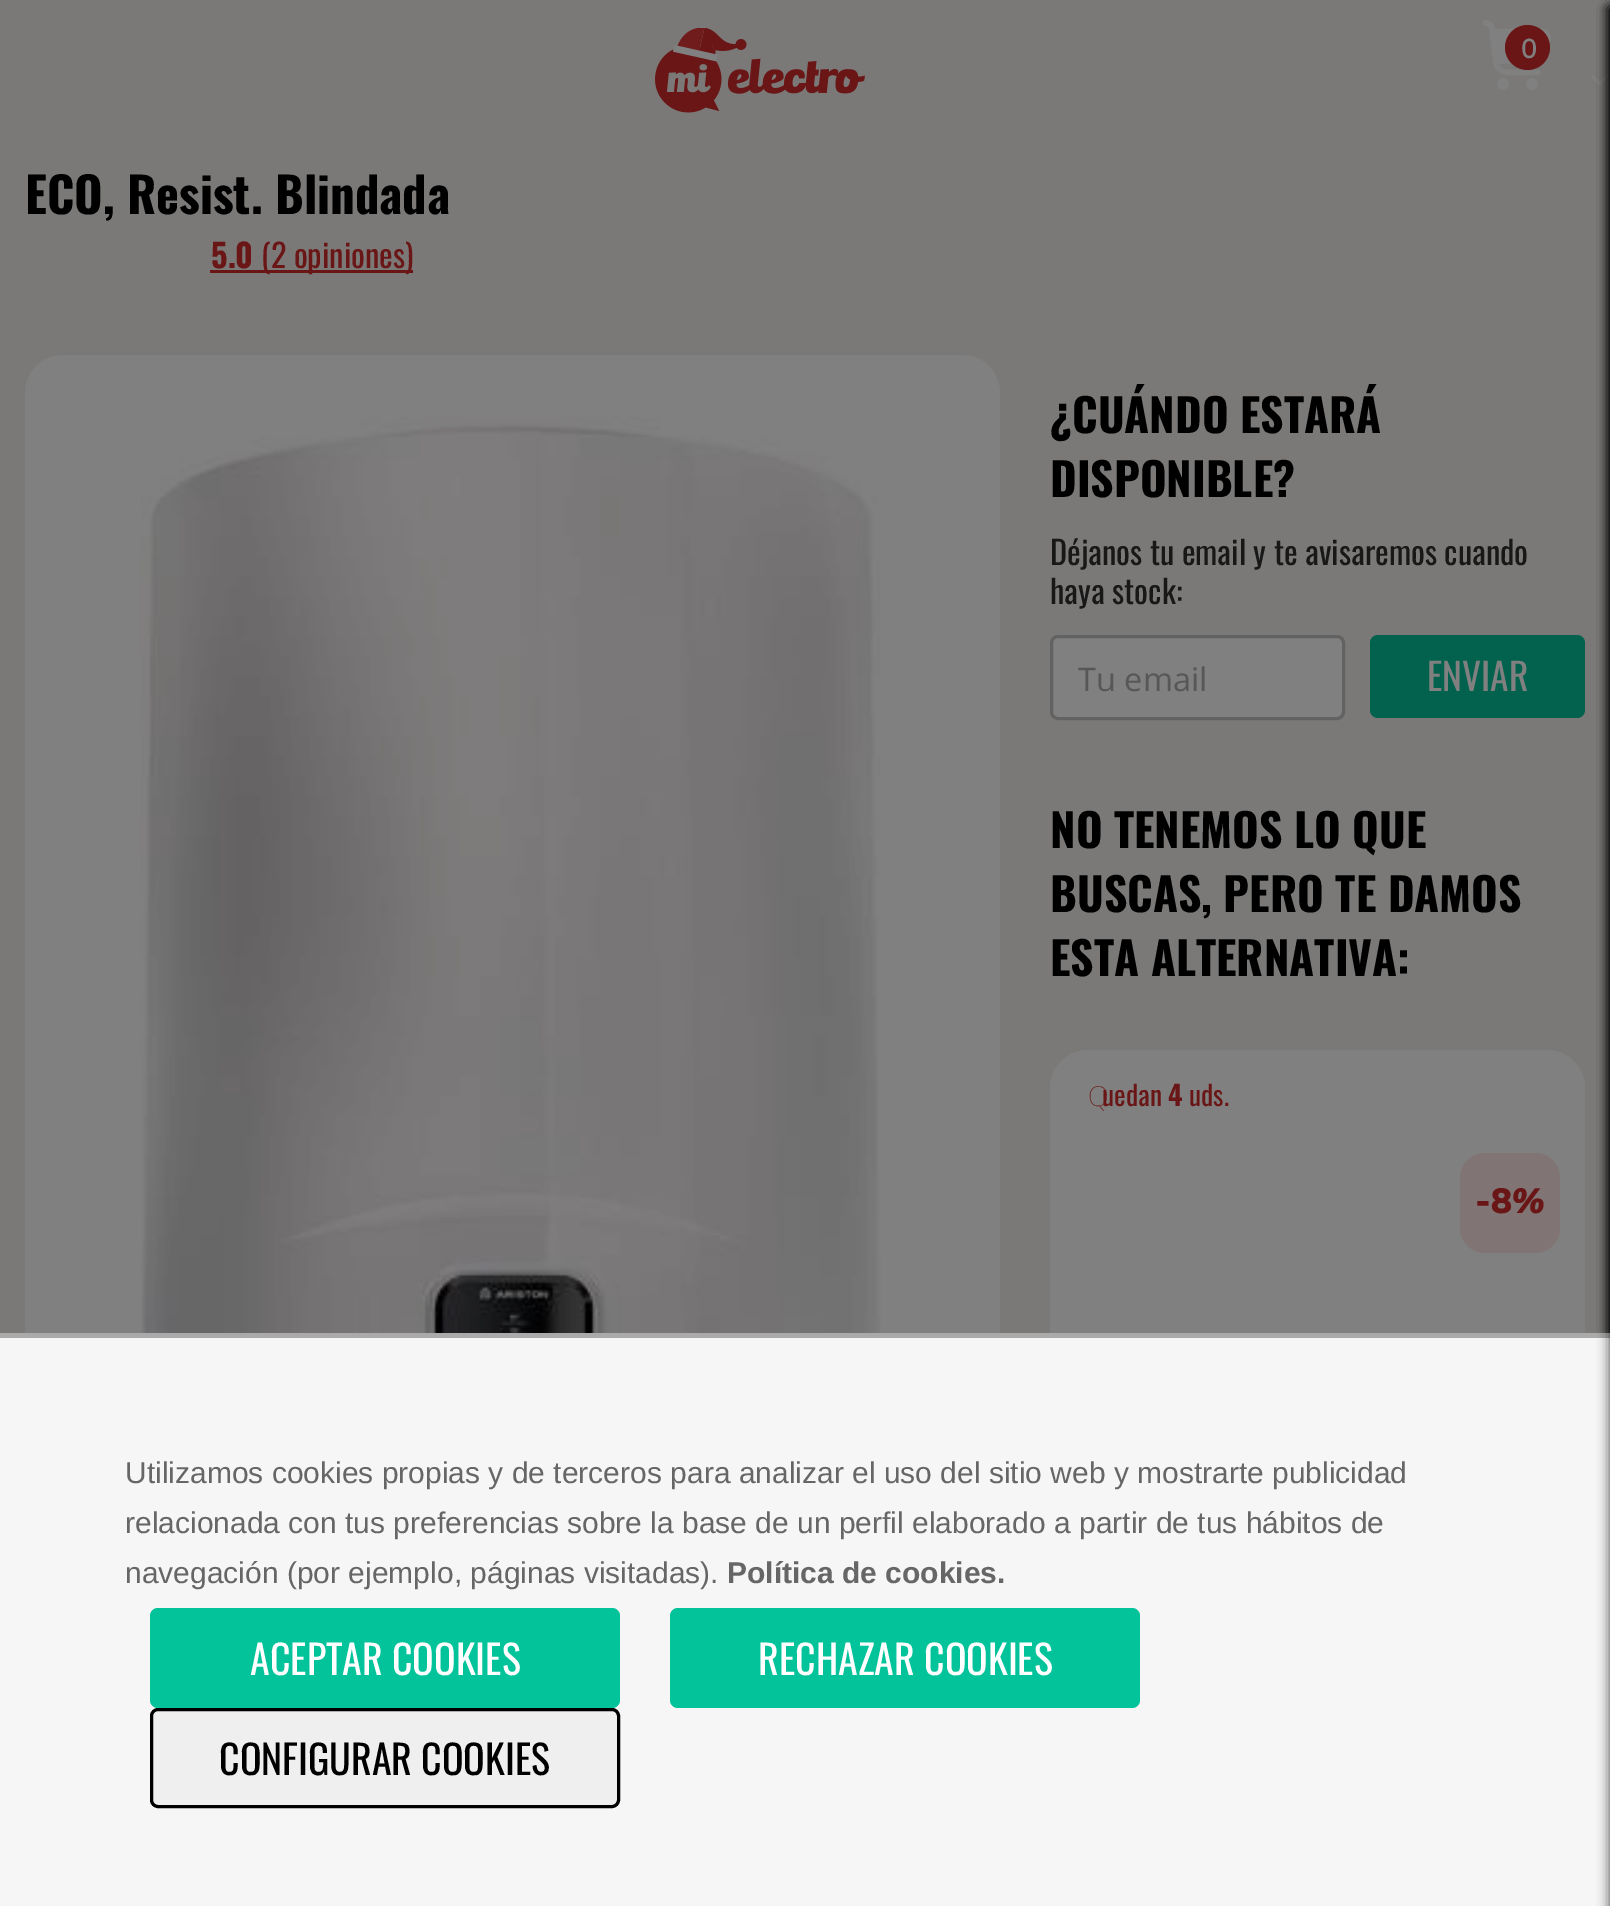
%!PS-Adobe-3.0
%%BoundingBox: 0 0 1610 1906
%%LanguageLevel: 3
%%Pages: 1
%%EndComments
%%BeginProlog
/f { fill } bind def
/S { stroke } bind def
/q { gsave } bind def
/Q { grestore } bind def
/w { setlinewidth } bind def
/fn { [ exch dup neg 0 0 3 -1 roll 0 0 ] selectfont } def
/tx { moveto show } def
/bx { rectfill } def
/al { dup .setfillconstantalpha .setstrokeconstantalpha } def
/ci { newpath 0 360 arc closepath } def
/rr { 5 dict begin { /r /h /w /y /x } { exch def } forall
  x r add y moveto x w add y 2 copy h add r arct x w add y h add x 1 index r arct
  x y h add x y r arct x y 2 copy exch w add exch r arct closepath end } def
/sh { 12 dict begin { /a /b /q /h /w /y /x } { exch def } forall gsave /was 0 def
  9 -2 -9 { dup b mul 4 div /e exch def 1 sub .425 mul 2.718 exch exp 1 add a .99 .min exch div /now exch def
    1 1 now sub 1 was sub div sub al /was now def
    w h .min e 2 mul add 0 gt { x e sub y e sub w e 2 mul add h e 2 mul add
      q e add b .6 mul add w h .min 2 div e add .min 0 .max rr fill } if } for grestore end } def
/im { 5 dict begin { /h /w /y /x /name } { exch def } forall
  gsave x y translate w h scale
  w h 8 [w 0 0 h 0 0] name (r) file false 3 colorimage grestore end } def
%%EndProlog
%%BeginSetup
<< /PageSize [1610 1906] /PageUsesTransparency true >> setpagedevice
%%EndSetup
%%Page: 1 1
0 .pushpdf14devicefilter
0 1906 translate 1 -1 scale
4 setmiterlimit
0.478 0.475 0.467 setrgbcolor
0 0 1610 1906 bx
(image2.raw) 1591 75 17 10 im
0 setgray
1610 8 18 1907 0 6 0.41 sh
1610 8 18 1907 0 6 0.41 sh
1610 8 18 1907 0 6 0.41 sh
0.502 setgray
25 355 975 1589 38 rr f
1050 1050 535 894 38 rr f
0 setgray
1610 8 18 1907 0 6 0.41 sh
0.965 setgray
0 1338 1610 568 bx
0.667 setgray
0 1333 1610 5 bx
0 setgray
1610 8 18 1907 0 6 0.41 sh
(image0.raw) 655 28 210 85 im
(image1.raw) 1483 20 68 70 im
0.416 0.086 0.086 setrgbcolor
1527.5 47.5 22.5 ci f
/Muli-Bold 26 fn
0.502 setgray
(0) 1521 58 tx
/Oswald-Bold 48.75 fn
0 setgray
(ECO, Resist. Blindada) 25 214 tx
/Oswald-Bold 32.5 fn
0.416 0.086 0.086 setrgbcolor
(5.0) 211 268 tx
210 270 203 3 bx
/Oswald-Regular 32.5 fn
(\(2 opiniones\)) 261 268 tx
(image3.raw) 140 417 745 916 im
/Oswald-Bold 45.5 fn
0 setgray
(¿CUÁNDO ESTARÁ) 1050 433 tx
(DISPONIBLE?) 1050 497 tx
/Oswald-Regular 32.5 fn
0.094 setgray
(Déjanos tu email y te avisaremos cuando) 1050 565 tx
(haya stock:) 1050 604 tx
0.502 setgray
1051.5 636.5 292 82 6.5 rr q f Q
0.384 setgray
3 w
S
/OpenSans-Regular 32.5 fn
0.341 setgray
(Tu email) 1078 691 tx
0.008 0.384 0.302 setrgbcolor
1370 635 215 83 8 rr f
/Oswald-Regular 37.5 fn
0.502 setgray
(ENVIAR) 1427 691 tx
/Oswald-Bold 45.5 fn
0 setgray
(NO TENEMOS LO QUE) 1050 848 tx
(BUSCAS, PERO TE DAMOS) 1050 912 tx
(ESTA ALTERNATIVA:) 1050 976 tx
/NotoSans-Thin 27.5 fn
0.416 0.086 0.086 setrgbcolor
(Q) 1088 1106 tx
/Oswald-Regular 27.5 fn
(uedan) 1102 1106 tx
/Oswald-Bold 27.5 fn
(4) 1168 1106 tx
/Oswald-Regular 27.5 fn
(uds.) 1189 1106 tx
0.502 0.455 0.455 setrgbcolor
1460 1153 100 100 25 rr f
/Mulish-Black 35 fn
0.416 0.086 0.086 setrgbcolor
(-8) 1475 1213 tx
/Mulish-BlackItalic 35 fn
(%) 1511 1213 tx
/LiberationSans-Regular 30 fn
0.4 setgray
(Utilizamos cookies propias y de terceros para analizar el uso del sitio web y mostrarte publicidad) 125 1483 tx
(relacionada con tus preferencias sobre la base de un perfil elaborado a partir de tus hábitos de) 125 1533 tx
(navegación \(por ejemplo, páginas visitadas\).) 125 1583 tx
/LiberationSans-Bold 30 fn
(Política de cookies.) 727 1583 tx
0.012 0.765 0.604 setrgbcolor
150 1608 470 100 8 rr f
/Oswald-Regular 40 fn
1 setgray
(ACEPTAR COOKIES) 250 1675 tx
0.012 0.765 0.604 setrgbcolor
670 1608 470 100 8 rr f
1 setgray
(RECHAZAR COOKIES) 758 1675 tx
0.937 setgray
151.5 1709.5 467 97 6.5 rr q f Q
0 setgray
S
(CONFIGURAR COOKIES) 219 1775 tx
1610 8 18 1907 0 6 0.41 sh
.poppdf14devicefilter showpage
%%EOF
